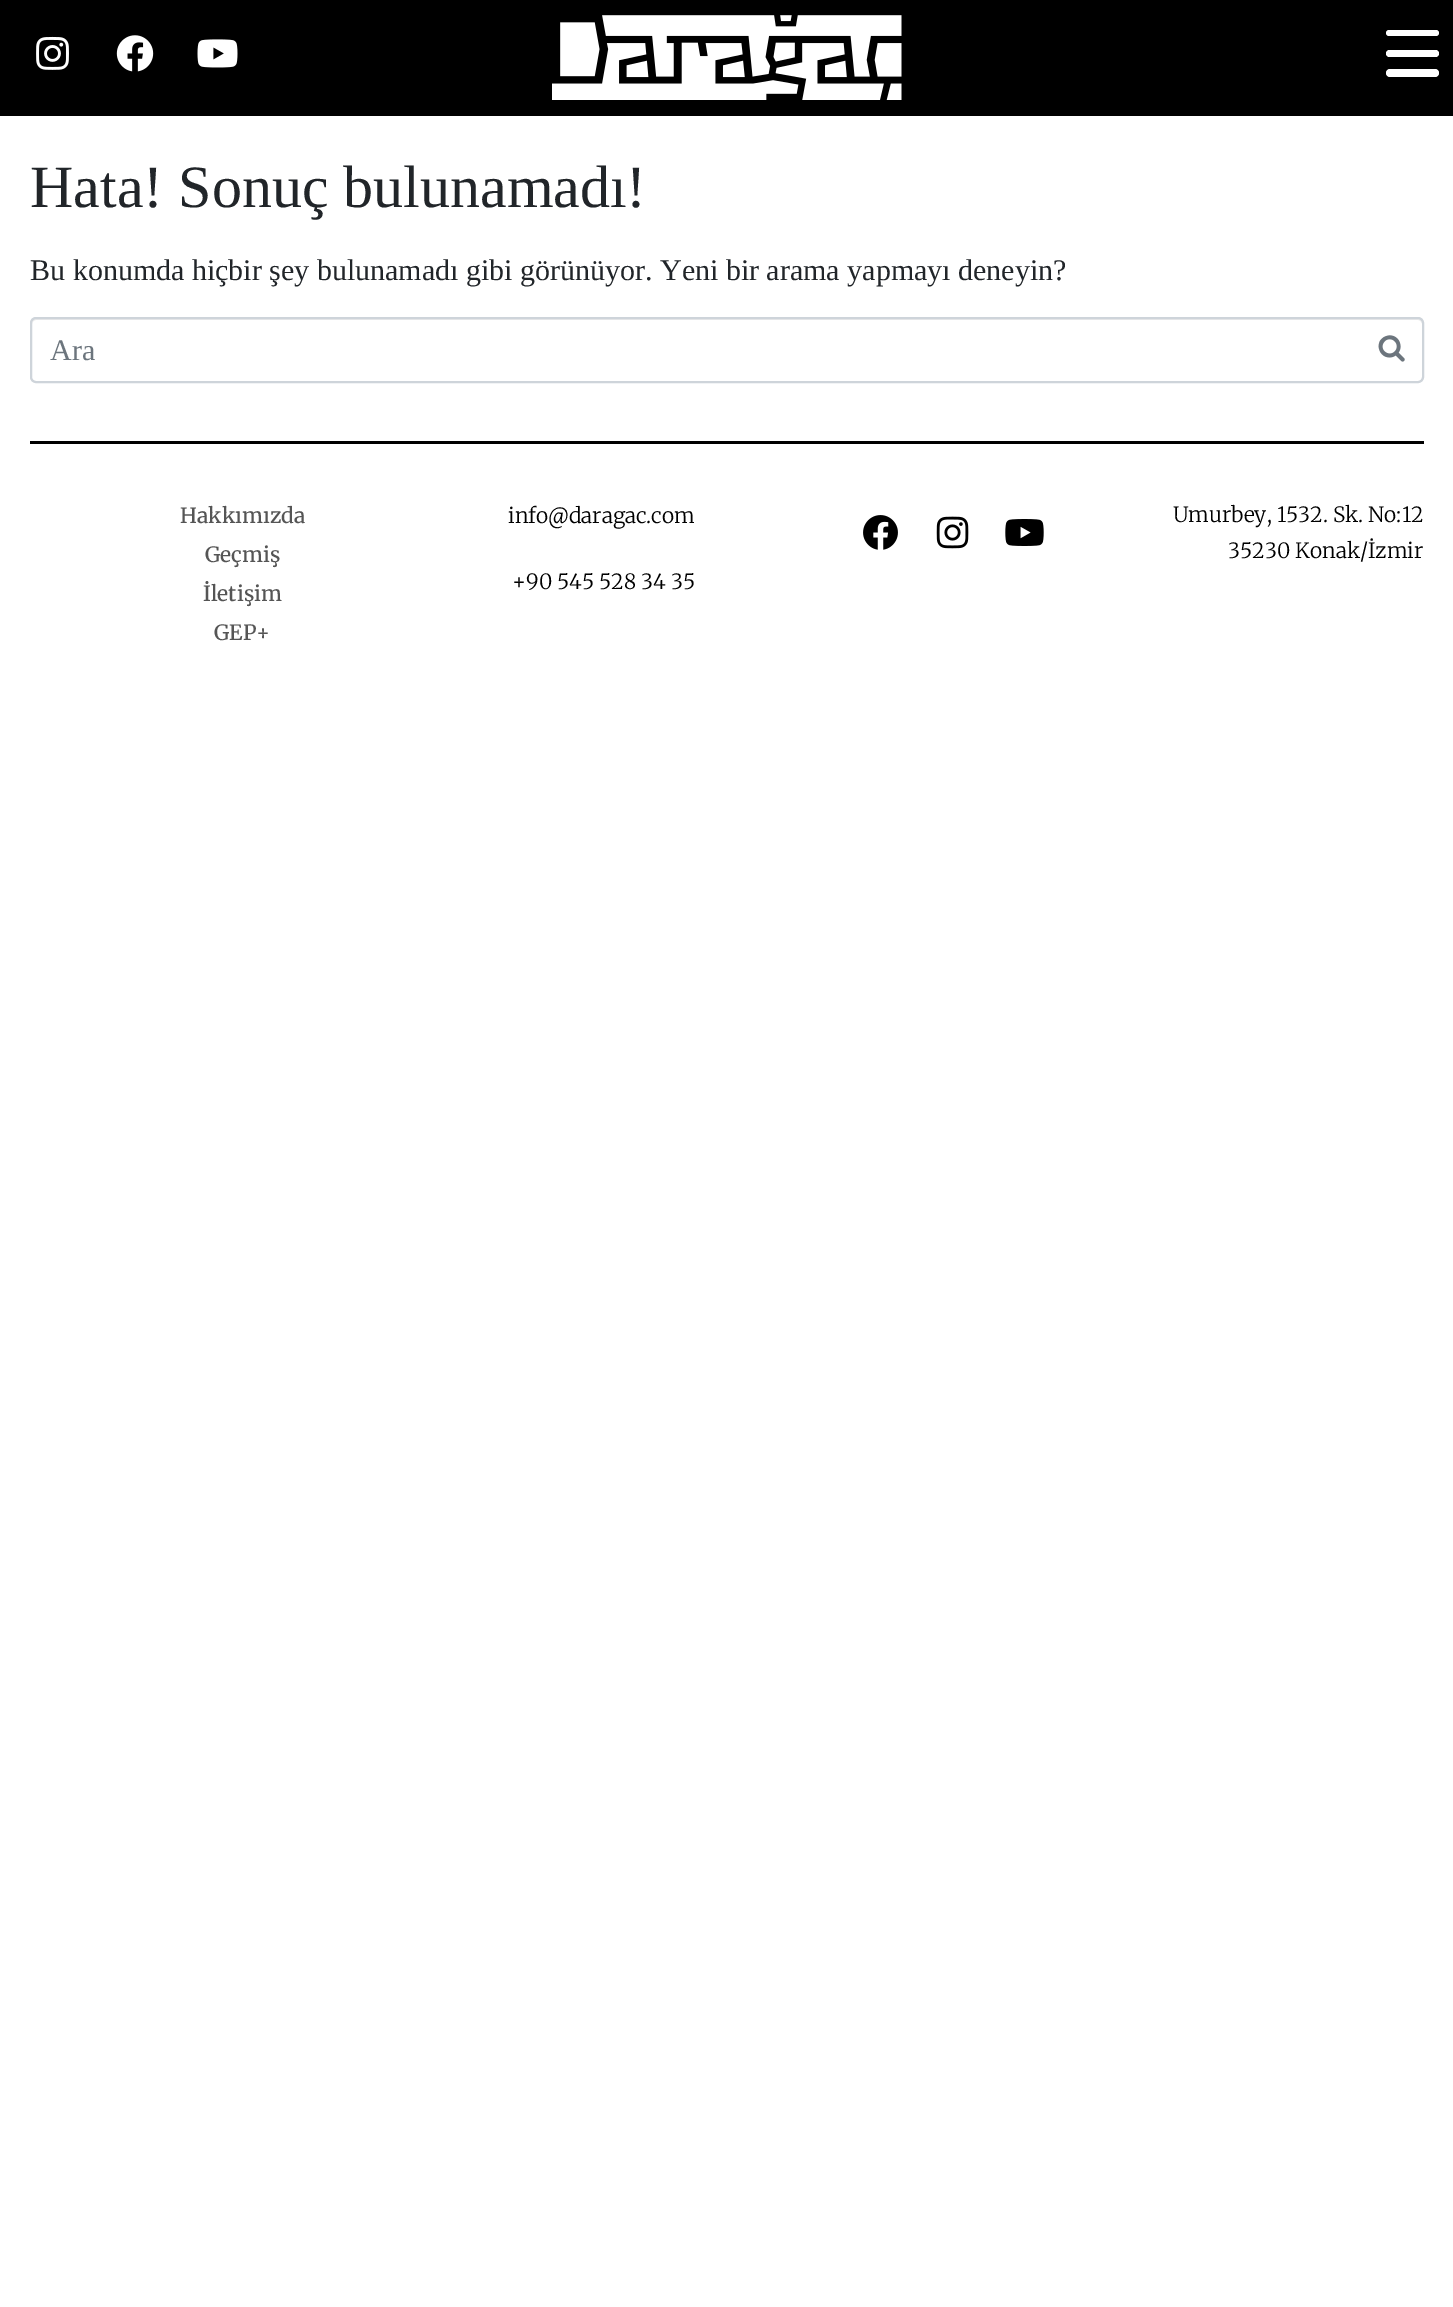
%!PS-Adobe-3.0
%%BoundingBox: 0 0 1453 2307
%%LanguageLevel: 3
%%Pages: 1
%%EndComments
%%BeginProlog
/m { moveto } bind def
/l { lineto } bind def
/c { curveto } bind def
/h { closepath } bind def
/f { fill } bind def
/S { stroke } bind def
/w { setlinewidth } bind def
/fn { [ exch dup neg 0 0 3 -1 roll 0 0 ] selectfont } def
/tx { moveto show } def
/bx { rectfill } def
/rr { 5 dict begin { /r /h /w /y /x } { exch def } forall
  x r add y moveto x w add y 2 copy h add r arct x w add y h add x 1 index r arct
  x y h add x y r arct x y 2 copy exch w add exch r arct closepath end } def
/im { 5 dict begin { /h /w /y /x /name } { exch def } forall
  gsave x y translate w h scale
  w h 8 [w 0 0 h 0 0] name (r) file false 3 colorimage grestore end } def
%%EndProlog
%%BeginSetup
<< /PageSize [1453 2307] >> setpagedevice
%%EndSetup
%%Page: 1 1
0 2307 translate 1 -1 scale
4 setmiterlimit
1 setgray
0 0 1453 2307 bx
0 setgray
0 0 1453 116 bx
(image0.raw) 36 36 33 34 im
(image1.raw) 116 35 38 37 im
(image2.raw) 197 39 41 29 im
(image3.raw) 552 15 350 85 im
1 setgray
1386 50 53 7 3.5 rr f
1386 30 53 6 3 rr f
1386 69 53 8 4 rr f
/LiberationSerif-Regular 60 fn
0.129 0.145 0.161 setrgbcolor
(Hata! Sonuç bulunamadı!) 30 207 tx
/LiberationSerif-Regular 30 fn
(Bu konumda hiçbir şey bulunamadı gibi görünüyor. Yeni bir arama yapmayı deneyin?) 30 280 tx
0.925 setgray
36 320 m 1418 320 l 1420 320 1422 322 1422 324 c 1422 321 1420 318 1417 318 c 37 318 l 34 318 32 321 32 324 c 32 322 34 320 36 320 c h f
0.808 0.831 0.855 setrgbcolor
2 w
31 318 1392 64 5 rr S
0.424 0.459 0.49 setrgbcolor
(Ara) 50 360 tx
(image4.raw) 1378 335 27 27 im
0 setgray
30 441 1394 3 bx
/Merriweather-Medium 21 fn
0.333 setgray
(Hakkımızda) 180 523 tx
(Geçmiş) 205 562 tx
(İletişim) 203 601 tx
(GEP+) 214 640 tx
/Merriweather-Light 21 fn
0 setgray
(info@daragac.com) 508 523 tx
(+90 545 528 34 35) 512 589 tx
(image5.raw) 863 515 35 35 im
(image6.raw) 936 516 33 33 im
(image7.raw) 1005 519 39 27 im
(Umurbey, 1532. Sk. No:12) 1173 522 tx
(35230 Konak/İzmir) 1228 558 tx
showpage
%%EOF
